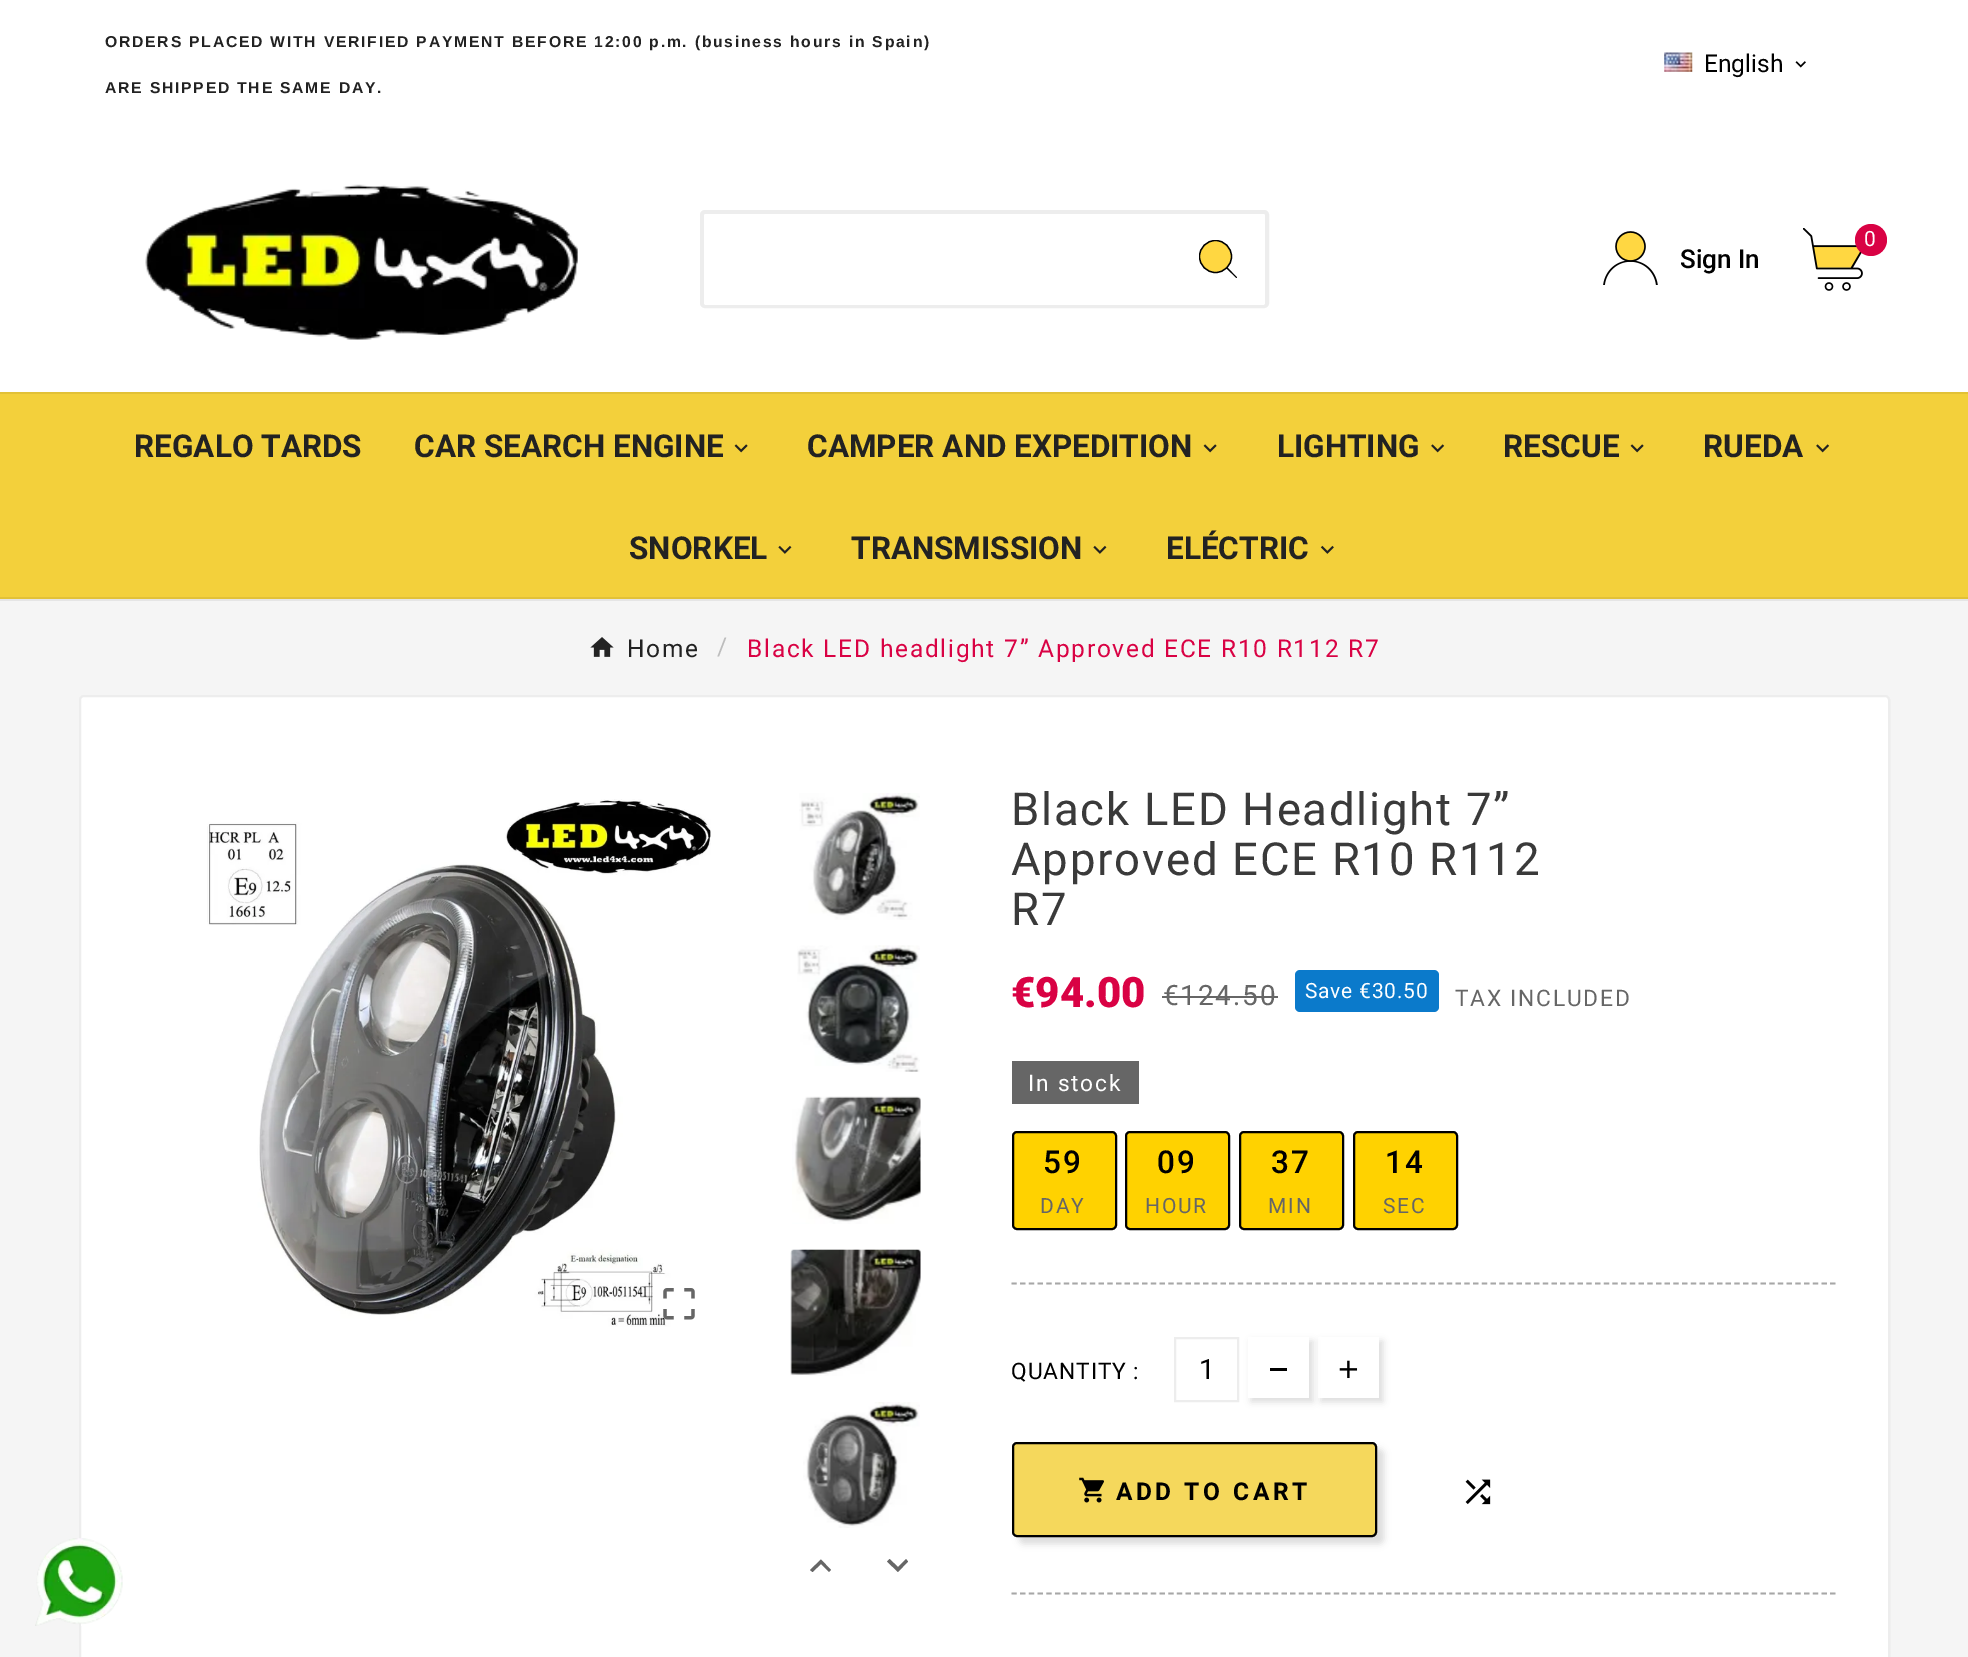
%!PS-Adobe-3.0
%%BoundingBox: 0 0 1968 1657
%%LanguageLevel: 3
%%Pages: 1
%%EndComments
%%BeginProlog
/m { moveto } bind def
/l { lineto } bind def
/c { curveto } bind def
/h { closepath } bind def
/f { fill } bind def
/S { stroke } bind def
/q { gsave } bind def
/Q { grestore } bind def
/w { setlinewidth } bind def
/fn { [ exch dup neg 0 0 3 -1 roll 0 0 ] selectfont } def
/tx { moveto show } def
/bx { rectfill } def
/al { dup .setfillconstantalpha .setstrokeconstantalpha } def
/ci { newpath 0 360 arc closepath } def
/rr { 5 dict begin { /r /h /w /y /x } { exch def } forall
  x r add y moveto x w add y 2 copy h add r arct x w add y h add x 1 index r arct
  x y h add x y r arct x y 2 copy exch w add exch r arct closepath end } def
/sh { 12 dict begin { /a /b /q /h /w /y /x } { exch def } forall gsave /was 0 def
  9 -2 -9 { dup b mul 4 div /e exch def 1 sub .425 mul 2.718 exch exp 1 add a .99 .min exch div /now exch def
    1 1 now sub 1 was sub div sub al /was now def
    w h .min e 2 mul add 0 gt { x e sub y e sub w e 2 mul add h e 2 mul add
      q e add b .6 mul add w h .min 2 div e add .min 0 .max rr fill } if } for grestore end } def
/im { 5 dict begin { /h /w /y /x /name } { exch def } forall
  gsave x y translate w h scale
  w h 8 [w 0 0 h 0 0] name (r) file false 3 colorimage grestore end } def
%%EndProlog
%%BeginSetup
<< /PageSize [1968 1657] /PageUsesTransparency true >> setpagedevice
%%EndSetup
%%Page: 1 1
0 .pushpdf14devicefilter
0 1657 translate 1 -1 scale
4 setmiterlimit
0.961 setgray
0 0 1968 1657 bx
1 setgray
0 0 1968 392 bx
0.898 setgray
0 599 1968 2 bx
/LiberationSans-Bold 15.75 fn
0.133 setgray
105 47 m 1.75 0 (ORDERS PLACED WITH VERIFIED PAYMENT BEFORE 12:00 p.m. \(business hours in Spain\)) ashow
105 93 m 1.75 0 (ARE SHIPPED THE SAME DAY.) ashow
(image0.raw) 1664 52 29 20 im
/Roboto-Regular 24.5 fn
0 setgray
(English) 1704 72 tx
(image1.raw) 1795 61 11 7 im
(image2.raw) 145 184 433 156 im
0.929 setgray
4 w
702 212 565 94 3 rr S
1 setgray
706 214 m 1171 214 l 1171 305 l 706 305 l 705 305 704 304 704 303 c 704 216 l 704 215 705 214 706 214 c h f
1171 214 m 1263 214 l 1264 214 1265 215 1265 216 c 1265 303 l 1265 304 1264 305 1263 305 c 1171 305 l h f
0 setgray
1236.5 278 m 1226.5 268.5 l 1227.5 267.5 l 1237 277.5 l h f
1 0.843 0.255 setrgbcolor
1215.5 256.5 15.5 ci f
q
1199 240 38 38 rectclip
0 setgray
1.3 w
1215.5 256.5 16 ci S
Q
(image3.raw) 1803 228 60 63 im
0.851 0.008 0.267 setrgbcolor
1871 240 16 ci f
/Roboto-Regular 21 fn
1 setgray
1864 246 m 1.75 0 (0) ashow
(image4.raw) 1603 231 55 54 im
/Roboto-Medium 26 fn
0 setgray
(Sign In) 1680 268 tx
0.953 0.816 0.231 setrgbcolor
0 394 1968 203 bx
0.886 0.757 0.216 setrgbcolor
0 392 1968 2 bx
0 597 1968 2 bx
/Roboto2-Bold 31.5 fn
0.133 setgray
(REGALO TARDS) 134 457 tx
(CAR SEARCH ENGINE) 414 457 tx
(image5.raw) 734 444 14 9 im
(CAMPER AND EXPEDITION) 807 457 tx
(image5.raw) 1203 444 14 9 im
(LIGHTING) 1277 457 tx
(image6.raw) 1431 444 14 9 im
(RESCUE) 1503 457 tx
(image5.raw) 1630 444 14 9 im
(RUEDA) 1703 457 tx
(image6.raw) 1816 444 14 9 im
(SNORKEL) 629 559 tx
(image7.raw) 778 545 14 9 im
(TRANSMISSION) 851 559 tx
(image7.raw) 1093 545 14 9 im
(ELÉCTRIC) 1166 559 tx
(image8.raw) 1320 545 14 9 im
(image9.raw) 590 637 24 20 im
/Roboto-Regular 24.5 fn
627 657 m 1.75 0 (Home) ashow
0.741 setgray
717 655 m 1.75 0 (/) ashow
0.851 0.008 0.267 setrgbcolor
747 657 m 1.75 0 (Black LED headlight 7” Approved ECE R10 R112 R7) ashow
1 setgray
79 695 1811 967 5 rr f
0.07 al
0 setgray
2 w
80 696 1809 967 4 rr S
1 al
(image10.raw) 207 799 504 528 im
(image11.raw) 663 1288 32 32 im
(image12.raw) 799 793 121 127 im
(image13.raw) 797 945 123 127 im
(image14.raw) 792 1096 129 128 im
(image15.raw) 790 1249 131 127 im
(image16.raw) 803 1402 117 126 im
0.4 setgray
812.5 1572 m 810 1570 l 821 1559.5 l 831 1570 l 829 1572 l 821 1564 l h f
889.5 1559 m 898 1567 l 906 1559 l 908 1561.5 l 898 1572 l 887 1561.5 l h f
/Roboto-Regular 45.5 fn
0.227 setgray
1011 825 m 1.75 0 (Black LED Headlight 7”) ashow
1011 875 m 1.75 0 (Approved ECE R10 R112) ashow
1011 925 m 1.75 0 (R7) ashow
/Roboto-Black 42 fn
0.851 0.008 0.267 setrgbcolor
(€94.00) 1011 1007 tx
/Roboto-Regular 28 fn
0.4 setgray
1163 1005 m 1.75 0 (€124.50) ashow
1162 996 116 2 bx
0.043 0.478 0.796 setrgbcolor
1295 970 144 42 5 rr f
/Roboto-Regular 21 fn
1 setgray
1305 998 m 0.75 0 (Save €30.50) ashow
/Roboto-Regular 22.75 fn
0.4 setgray
1455 1006 m 1.75 0 (TAX INCLUDED) ashow
1012 1061 127 43 bx
1 setgray
1028 1091 m 1.75 0 (In stock) ashow
1 0.824 0 setrgbcolor
1013 1132 103 97 4 rr q f Q
0 setgray
S
/Roboto-Medium 31.5 fn
1043 1173 m 1.75 0 (59) ashow
/Roboto-Regular 21 fn
0.4 setgray
1040 1213 m 1.75 0 (DAY) ashow
1 0.824 0 setrgbcolor
1126 1132 103 97 4 rr q f Q
0 setgray
S
/Roboto-Medium 31.5 fn
1157 1173 m 1.75 0 (09) ashow
/Roboto-Regular 21 fn
0.4 setgray
1145 1213 m 1.75 0 (HOUR) ashow
1 0.824 0 setrgbcolor
1240 1132 103 97 4 rr q f Q
0 setgray
S
/Roboto-Medium 31.5 fn
1271 1173 m 1.75 0 (37) ashow
/Roboto-Regular 21 fn
0.4 setgray
1268 1213 m 1.75 0 (MIN) ashow
1 0.824 0 setrgbcolor
1354 1132 103 97 4 rr q f Q
0 setgray
S
/Roboto-Medium 31.5 fn
1385 1173 m 1.75 0 (14) ashow
/Roboto-Regular 21 fn
0.4 setgray
1383 1213 m 1.75 0 (SEC) ashow
0.655 setgray
1.8 w
[5.25 3.46] 0 setdash
1011.5 1283.5 m 1836 1283.5 l S
/Roboto-Regular 22.75 fn
0 setgray
1011 1379 m 0.9 0 (QUANTITY :) ashow
0.929 setgray
2 w
[] 0 setdash
1175 1338 63 63 rectstroke
/Roboto-Regular 28 fn
0 setgray
(1) 1199 1379 tx
q
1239 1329 m 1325 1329 l 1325 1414 l 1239 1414 l h 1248 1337 m 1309 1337 l 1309 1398 l 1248 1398 l h eoclip newpath
1251 1341 62 61 0 3.5 0.14 sh
Q
1270 1368 17 3 bx
q
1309 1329 m 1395 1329 l 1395 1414 l 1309 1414 l h 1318 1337 m 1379 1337 l 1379 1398 l 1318 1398 l h eoclip newpath
1321 1341 62 61 0 3.5 0.14 sh
Q
(image17.raw) 1339 1360 19 19 im
0.655 setgray
1.8 w
[5.25 3.46] 0 setdash
1011.5 1593.5 m 1836 1593.5 l S
(image18.raw) 1465 1479 26 26 im
0 setgray
1019 1449 365 95 5 3.5 0.14 sh
0.961 0.847 0.361 setrgbcolor
1013 1443 363 93 4 rr q f Q
0 setgray
2 w
[] 0 setdash
S
(image19.raw) 1079 1477 25 26 im
/Roboto-Bold 24.5 fn
1116 1500 m 3.5 0 (ADD TO CART) ashow
(image20.raw) 35 1538 88 88 im
.poppdf14devicefilter showpage
%%EOF
